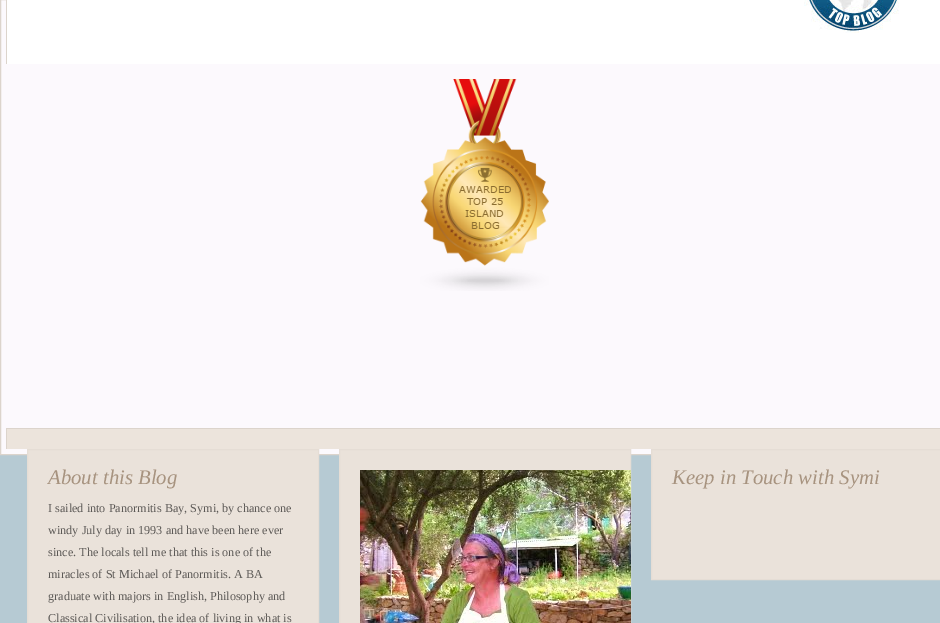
%!PS-Adobe-3.0
%%BoundingBox: 0 0 940 623
%%LanguageLevel: 3
%%Pages: 1
%%EndComments
%%BeginProlog
/m { moveto } bind def
/l { lineto } bind def
/h { closepath } bind def
/f { fill } bind def
/S { stroke } bind def
/q { gsave } bind def
/Q { grestore } bind def
/fn { [ exch dup neg 0 0 3 -1 roll 0 0 ] selectfont } def
/tx { moveto show } def
/bx { rectfill } def
/im { 5 dict begin { /h /w /y /x /name } { exch def } forall
  gsave x y translate w h scale
  w h 8 [w 0 0 h 0 0] name (r) file false 3 colorimage grestore end } def
%%EndProlog
%%BeginSetup
<< /PageSize [940 623] >> setpagedevice
%%EndSetup
%%Page: 1 1
0 623 translate 1 -1 scale
4 setmiterlimit
0.714 0.792 0.827 setrgbcolor
0 0 940 623 bx
0.988 0.976 0.992 setrgbcolor
0.5 -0.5 m 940.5 -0.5 l 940.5 454.5 l 0.5 454.5 l h q f Q
0.863 0.831 0.8 setrgbcolor
S
1 setgray
7 0 933 64 bx
0.863 0.831 0.8 setrgbcolor
6 0 1 64 bx
(image0.raw) 804 0 95 33 im
(image1.raw) 420 79 129 212 im
0.925 0.894 0.863 setrgbcolor
7 429 933 20 bx
0.863 0.831 0.8 setrgbcolor
6 428 934 1 bx
6 428 1 21 bx
0.918 0.886 0.855 setrgbcolor
27.5 449.5 m 318.5 449.5 l 318.5 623.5 l 27.5 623.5 l h q f Q
0.898 0.867 0.835 setrgbcolor
S
/LiberationSerif-Italic 20.75 fn
0.655 0.576 0.498 setrgbcolor
(About this Blog) 48 484 tx
/LiberationSerif-Regular 12.2 fn
0.361 0.349 0.337 setrgbcolor
(I sailed into Panormitis Bay, Symi, by chance one) 48 512 tx
(windy July day in 1993 and have been here ever) 48 534 tx
(since. The locals tell me that this is one of the) 48 556 tx
(miracles of St Michael of Panormitis. A BA) 48 578 tx
(graduate with majors in English, Philosophy and) 48 600 tx
(Classical Civilisation, the idea of living in what is) 48 622 tx
0.918 0.886 0.855 setrgbcolor
339.5 449.5 m 630.5 449.5 l 630.5 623.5 l 339.5 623.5 l h q f Q
0.898 0.867 0.835 setrgbcolor
S
(image2.raw) 360 470 271 153 im
0.918 0.886 0.855 setrgbcolor
651.5 449.5 m 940.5 449.5 l 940.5 579.5 l 651.5 579.5 l h q f Q
0.898 0.867 0.835 setrgbcolor
S
/LiberationSerif-Italic 20.75 fn
0.655 0.576 0.498 setrgbcolor
(Keep in Touch with Symi) 672 484 tx
showpage
%%EOF
